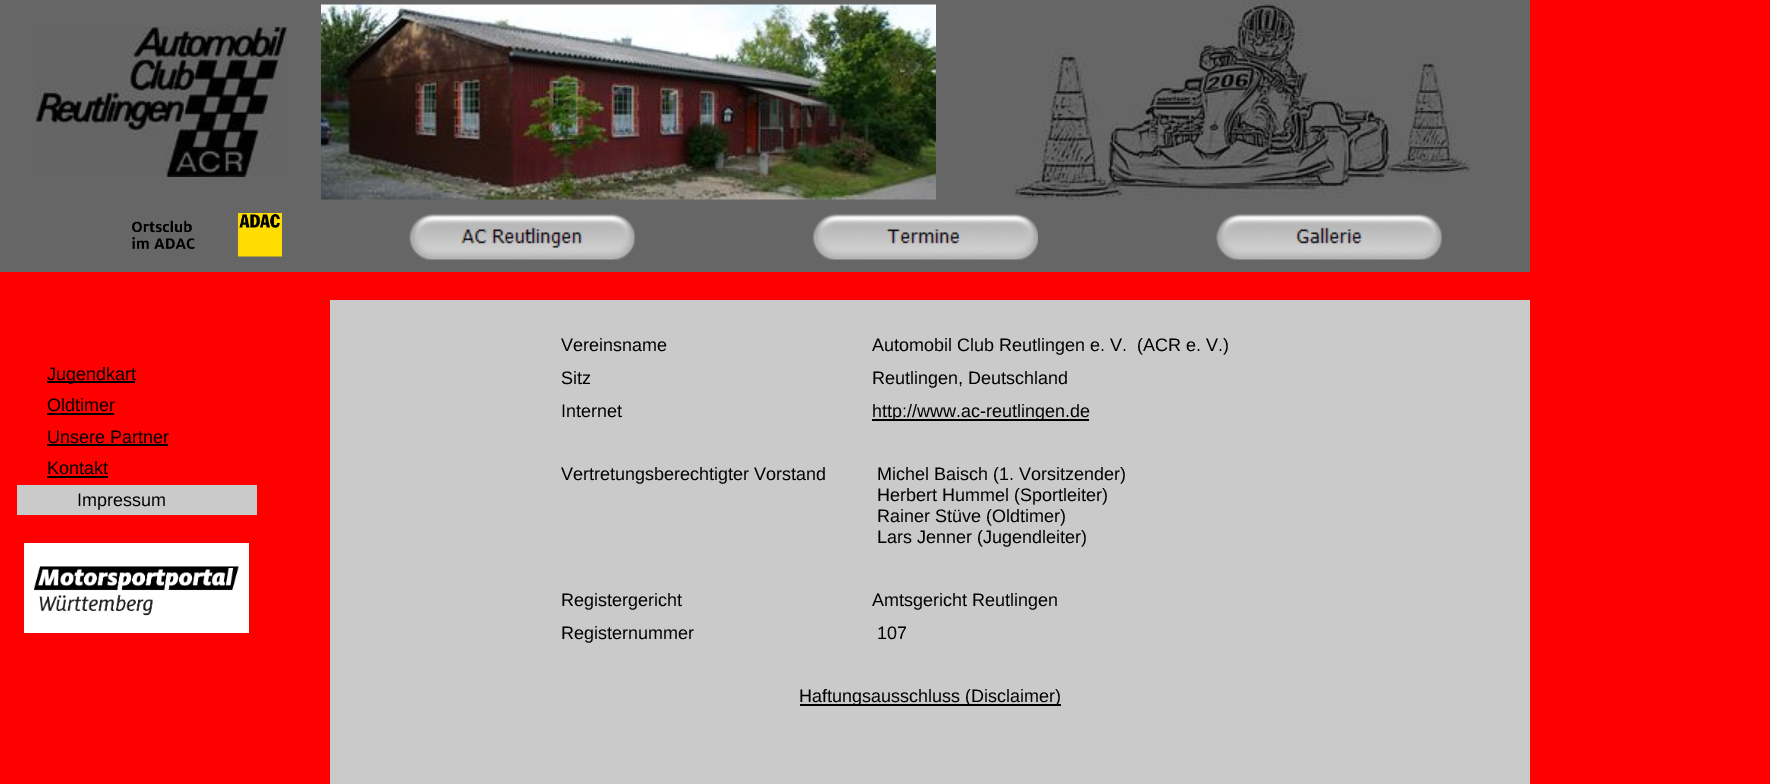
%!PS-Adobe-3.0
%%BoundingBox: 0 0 1770 784
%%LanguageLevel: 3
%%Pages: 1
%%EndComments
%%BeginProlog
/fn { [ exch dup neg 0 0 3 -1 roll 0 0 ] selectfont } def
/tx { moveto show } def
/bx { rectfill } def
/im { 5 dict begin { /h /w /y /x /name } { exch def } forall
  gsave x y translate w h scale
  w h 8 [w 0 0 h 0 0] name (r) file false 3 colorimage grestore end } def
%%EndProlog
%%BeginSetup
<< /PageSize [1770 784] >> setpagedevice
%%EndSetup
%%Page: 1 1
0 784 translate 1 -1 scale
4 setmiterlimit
1 0 0 setrgbcolor
0 0 1770 784 bx
0.4 setgray
0 0 1530 203 bx
(image0.raw) 36 27 251 150 im
(image1.raw) 321 4 615 196 im
(image2.raw) 1014 4 456 196 im
0 203 1530 69 bx
(image3.raw) 132 213 150 44 im
(image4.raw) 409 214 226 46 im
(image5.raw) 813 214 225 46 im
(image6.raw) 1216 214 226 46 im
0 setgray
47 381 88 2 bx
/LiberationSans-Regular 18 fn
(Jugendkart) 47 380 tx
(Oldtimer) 47 411 tx
47 413 67 2 bx
(Unsere Partner) 47 443 tx
47 444 121 2 bx
(Kontakt) 47 474 tx
47 476 61 2 bx
0.792 setgray
17 485 240 30 bx
0 setgray
(Impressum) 77 506 tx
(image7.raw) 24 543 225 90 im
0.792 setgray
330 300 1200 484 bx
0 setgray
(Vereinsname) 561 351 tx
(Automobil Club Reutlingen e. V.) 872 351 tx
(\(ACR e. V.\)) 1137 351 tx
(Sitz) 561 384 tx
(Reutlingen, Deutschland) 872 384 tx
(Internet) 561 417 tx
872 419 217 2 bx
(http://www.ac-reutlingen.de) 872 417 tx
(Vertretungsberechtigter Vorstand) 561 480 tx
(Michel Baisch \(1. Vorsitzender\)) 877 480 tx
(Herbert Hummel \(Sportleiter\)) 877 501 tx
(Rainer Stüve \(Oldtimer\)) 877 522 tx
(Lars Jenner \(Jugendleiter\)) 877 543 tx
(Registergericht) 561 606 tx
(Amtsgericht Reutlingen) 872 606 tx
(Registernummer) 561 639 tx
(107) 877 639 tx
800 704 261 2 bx
(Haftungsausschluss \(Disclaimer\)) 799 702 tx
showpage
%%EOF
